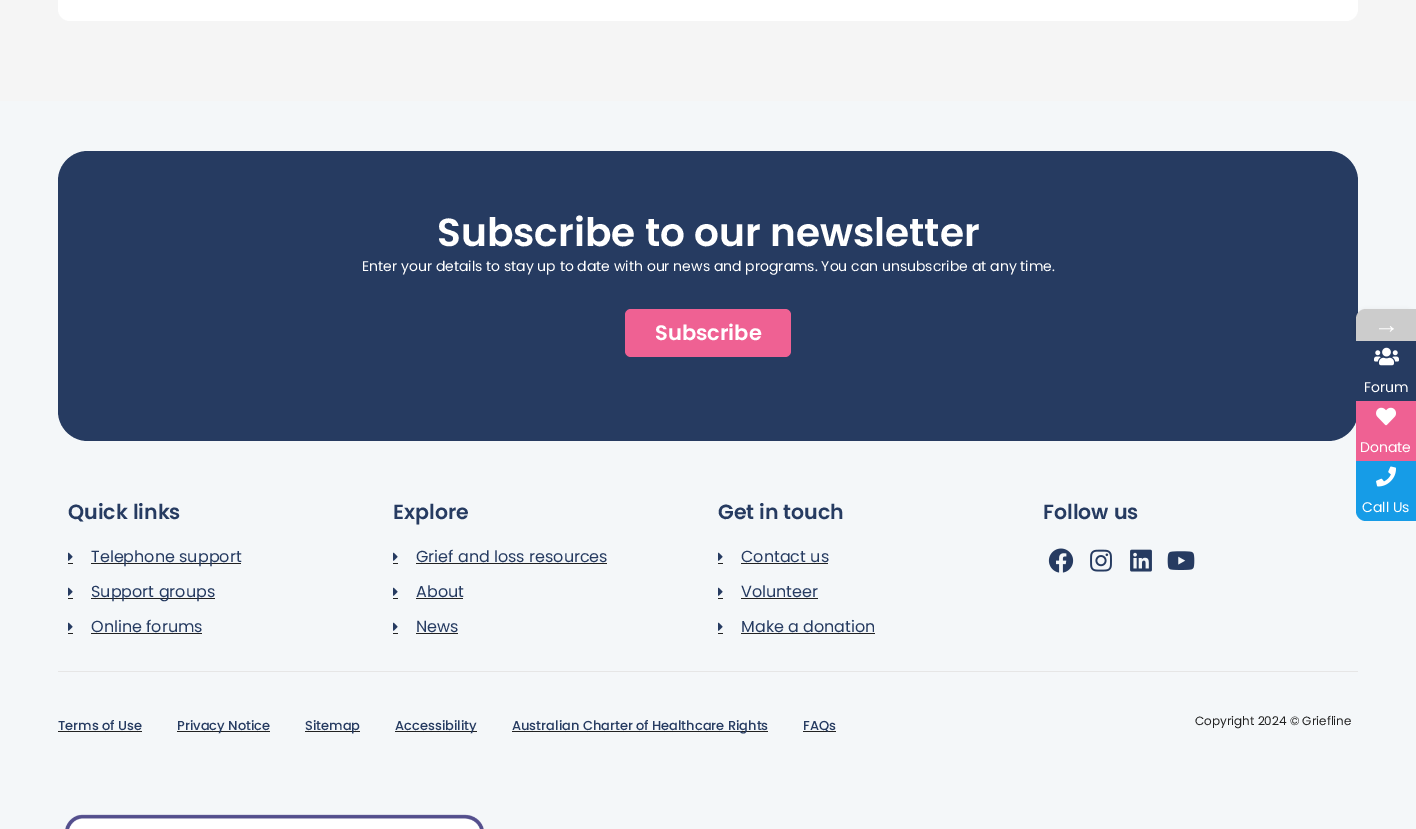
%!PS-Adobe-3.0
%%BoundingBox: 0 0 1416 829
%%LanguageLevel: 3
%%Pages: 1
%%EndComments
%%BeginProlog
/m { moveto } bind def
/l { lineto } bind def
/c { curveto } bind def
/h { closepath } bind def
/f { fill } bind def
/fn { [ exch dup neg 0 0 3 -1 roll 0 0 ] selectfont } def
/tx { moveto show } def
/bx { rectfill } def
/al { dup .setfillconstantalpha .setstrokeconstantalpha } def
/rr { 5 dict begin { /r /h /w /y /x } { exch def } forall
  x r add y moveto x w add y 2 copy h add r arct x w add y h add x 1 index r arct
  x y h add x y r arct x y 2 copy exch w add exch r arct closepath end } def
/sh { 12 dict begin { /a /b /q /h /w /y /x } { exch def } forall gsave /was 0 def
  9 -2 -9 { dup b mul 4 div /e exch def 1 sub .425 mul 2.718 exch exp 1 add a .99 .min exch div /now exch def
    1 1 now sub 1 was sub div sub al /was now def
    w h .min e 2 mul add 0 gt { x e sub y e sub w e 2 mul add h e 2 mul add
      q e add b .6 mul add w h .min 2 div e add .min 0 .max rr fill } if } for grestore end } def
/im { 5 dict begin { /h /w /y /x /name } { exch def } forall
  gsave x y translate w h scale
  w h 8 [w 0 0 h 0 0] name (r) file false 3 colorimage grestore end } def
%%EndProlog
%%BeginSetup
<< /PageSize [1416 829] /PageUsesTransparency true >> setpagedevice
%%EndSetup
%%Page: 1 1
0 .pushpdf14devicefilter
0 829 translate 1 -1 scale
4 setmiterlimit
0.961 setgray
0 0 1416 829 bx
1 setgray
58 -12 1300 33 12 rr f
0.957 0.969 0.976 setrgbcolor
0 101 1416 728 bx
0.149 0.231 0.38 setrgbcolor
58 151 1300 290 30 rr f
/Poppins-SemiBold 39.1 fn
1 setgray
(Subscribe to our newsletter) 437 246 tx
/Poppins-Regular 14 fn
(Enter your details to stay up to date with our news and programs. You can unsubscribe at any time.) 362 271 tx
0.937 0.38 0.576 setrgbcolor
625 309 166 48 6 rr f
/Poppins-SemiBold 21 fn
1 setgray
(Subscribe) 655 340 tx
/Poppins-SemiBold 20.5 fn
0.149 0.231 0.38 setrgbcolor
(Quick links) 68 519 tx
(image0.raw) 68 552 5 9 im
0.133 setgray
68 563 5 1 bx
91 563 150 1 bx
/Poppins-Regular 16 fn
0.149 0.231 0.38 setrgbcolor
(Telephone support) 91 562 tx
(image0.raw) 68 587 5 9 im
0.133 setgray
68 598 5 1 bx
91 598 124 1 bx
0.149 0.231 0.38 setrgbcolor
(Support groups) 91 597 tx
(image0.raw) 68 622 5 9 im
0.133 setgray
68 633 5 1 bx
0.149 0.231 0.38 setrgbcolor
(Online forums) 91 632 tx
0.133 setgray
91 633 111 1 bx
/Poppins-SemiBold 20.5 fn
0.149 0.231 0.38 setrgbcolor
(Explore) 393 519 tx
(image0.raw) 393 552 5 9 im
0.133 setgray
393 563 5 1 bx
/Poppins-Regular 16 fn
0.149 0.231 0.38 setrgbcolor
(Grief and loss resources) 416 562 tx
0.133 setgray
416 563 191 1 bx
(image0.raw) 393 587 5 9 im
393 598 5 1 bx
0.149 0.231 0.38 setrgbcolor
(About) 416 597 tx
0.133 setgray
416 598 47 1 bx
(image0.raw) 393 622 5 9 im
393 633 5 1 bx
0.149 0.231 0.38 setrgbcolor
(News) 416 632 tx
0.133 setgray
416 633 42 1 bx
/Poppins-SemiBold 20.5 fn
0.149 0.231 0.38 setrgbcolor
(Get in touch) 718 519 tx
(image0.raw) 718 552 5 9 im
0.133 setgray
718 563 5 1 bx
/Poppins-Regular 16 fn
0.149 0.231 0.38 setrgbcolor
(Contact us) 741 562 tx
0.133 setgray
741 563 87 1 bx
(image0.raw) 718 587 5 9 im
718 598 5 1 bx
0.149 0.231 0.38 setrgbcolor
(Volunteer) 741 597 tx
0.133 setgray
741 598 77 1 bx
(image0.raw) 718 622 5 9 im
718 633 5 1 bx
0.149 0.231 0.38 setrgbcolor
(Make a donation) 741 632 tx
0.133 setgray
741 633 134 1 bx
/Poppins-SemiBold 20.5 fn
0.149 0.231 0.38 setrgbcolor
(Follow us) 1043 519 tx
(image1.raw) 1048 548 26 25 im
(image2.raw) 1090 549 22 23 im
(image3.raw) 1130 549 22 23 im
(image4.raw) 1167 551 28 19 im
0.902 setgray
58 671 1300 1 bx
/Poppins-Medium 13 fn
0.149 0.231 0.38 setrgbcolor
(Terms of Use) 58 730 tx
0.133 setgray
58 731 84 1 bx
177 731 93 1 bx
0.149 0.231 0.38 setrgbcolor
(Privacy Notice) 177 730 tx
0.133 setgray
305 731 55 1 bx
0.149 0.231 0.38 setrgbcolor
(Sitemap) 305 730 tx
0.133 setgray
395 731 82 1 bx
0.149 0.231 0.38 setrgbcolor
(Accessibility) 395 730 tx
0.133 setgray
512 731 256 1 bx
0.149 0.231 0.38 setrgbcolor
(Australian Charter of Healthcare Rights) 512 730 tx
0.133 setgray
803 731 33 1 bx
0.149 0.231 0.38 setrgbcolor
(FAQs) 803 730 tx
/Poppins-Regular 12 fn
0.133 setgray
(Copyright 2024 © Griefline) 1195 725 tx
(image5.raw) 65 814 419 15 im
0 setgray
1356 312 60 32 10 3 0.16 sh
0.8 setgray
1366 309 m 1416 309 l 1416 341 l 1356 341 l 1356 319 l 1356 313.5 1360.5 309 1366 309 c h f
/LiberationSerif-Regular 25 fn
1 setgray
(→) 1374 333 tx
0.149 0.231 0.38 setrgbcolor
1356 341 60 60 bx
(image6.raw) 1374 347 25 19 im
/Poppins-Regular 14 fn
1 setgray
(Forum) 1364 392 tx
0.937 0.38 0.576 setrgbcolor
1356 401 60 60 bx
(image7.raw) 1376 407 20 19 im
1 setgray
(Donate) 1360 452 tx
0.086 0.612 0.906 setrgbcolor
1356 461 m 1416 461 l 1416 521 l 1366 521 l 1360.5 521 1356 516.5 1356 511 c h f
(image8.raw) 1376 466 20 21 im
1 setgray
(Call Us) 1362 512 tx
.poppdf14devicefilter showpage
%%EOF
